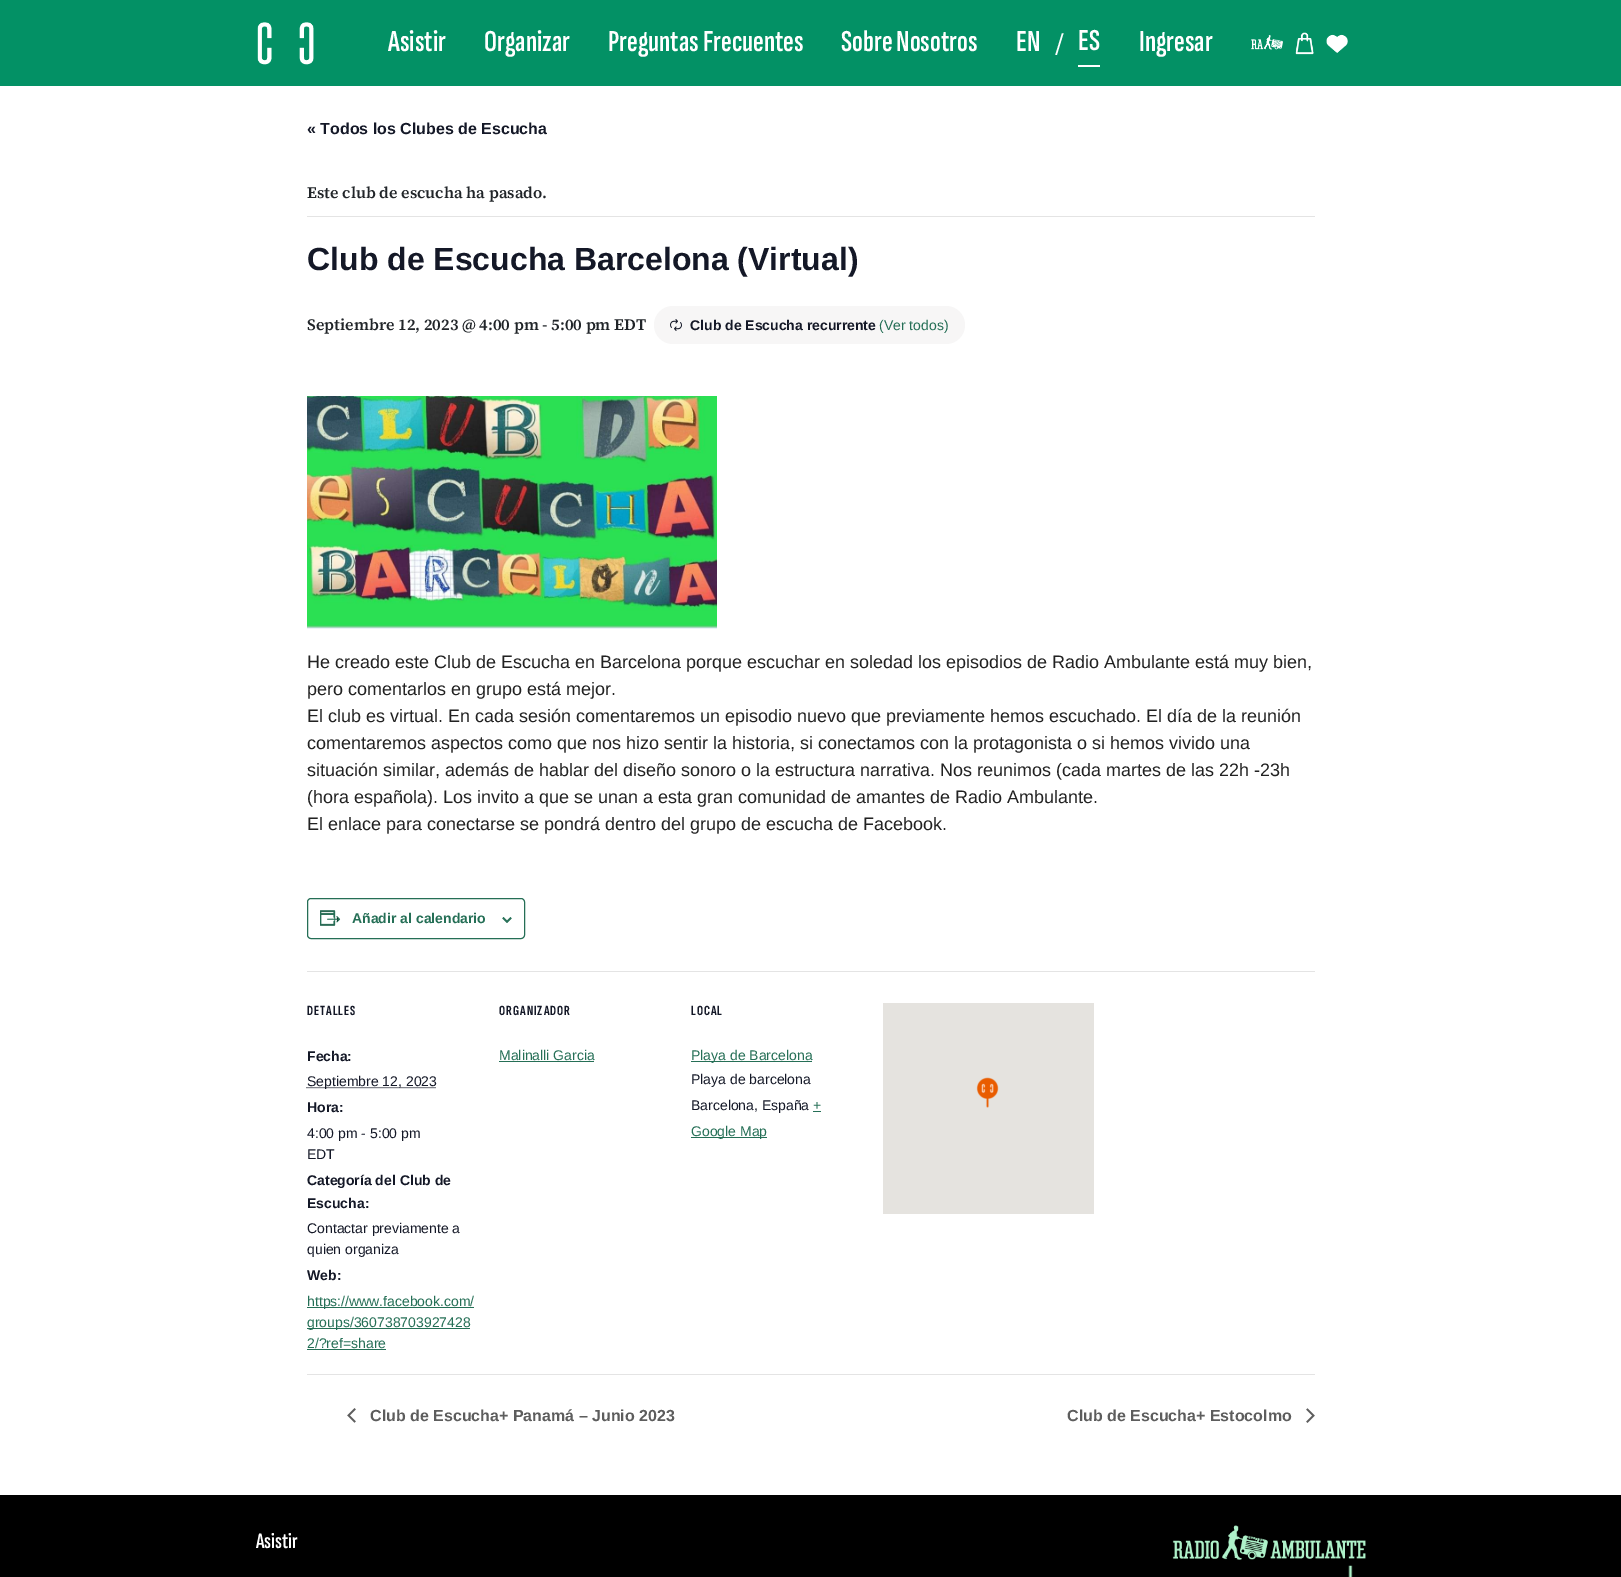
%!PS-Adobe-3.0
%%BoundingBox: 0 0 1621 1577
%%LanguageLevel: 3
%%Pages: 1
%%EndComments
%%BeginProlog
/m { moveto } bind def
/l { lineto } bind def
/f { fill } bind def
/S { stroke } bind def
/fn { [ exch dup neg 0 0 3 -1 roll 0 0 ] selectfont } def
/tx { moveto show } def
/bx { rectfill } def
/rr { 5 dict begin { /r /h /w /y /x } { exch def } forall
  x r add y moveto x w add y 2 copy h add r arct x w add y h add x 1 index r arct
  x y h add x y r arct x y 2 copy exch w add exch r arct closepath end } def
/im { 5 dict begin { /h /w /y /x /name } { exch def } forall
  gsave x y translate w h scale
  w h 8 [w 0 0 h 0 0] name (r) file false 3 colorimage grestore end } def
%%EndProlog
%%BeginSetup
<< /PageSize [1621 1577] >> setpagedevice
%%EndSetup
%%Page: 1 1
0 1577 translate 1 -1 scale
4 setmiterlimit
1 setgray
0 0 1621 1577 bx
0.012 0.569 0.396 setrgbcolor
0 0 1621 86 bx
(image0.raw) 257 22 57 43 im
/SofiaSansExtraCondensed-SemiBold 30.5 fn
1 setgray
(Asistir) 388 51 tx
(Organizar) 484 51 tx
(Preguntas Frecuentes) 608 51 tx
(Sobre Nosotros) 841 51 tx
(EN) 1016 51 tx
/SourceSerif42-SemiBold 25 fn
(/) 1055 51 tx
1078 65 22 2 bx
/SofiaSansExtraCondensed-SemiBold 30.5 fn
(ES) 1078 50 tx
(Ingresar) 1139 51 tx
(image1.raw) 1251 35 32 15 im
(image2.raw) 1295 32 19 23 im
(image3.raw) 1326 34 22 19 im
/LiberationSans-Bold 16 fn
0.078 0.094 0.153 setrgbcolor
(« Todos los Clubes de Escucha) 307 134 tx
0.894 setgray
307 216 1008 1 bx
/SourceSerif4-SemiBold 16 fn
0.129 0.145 0.161 setrgbcolor
(Este club de escucha ha pasado.) 307 198 tx
/LiberationSans-Bold 32 fn
0.078 0.094 0.153 setrgbcolor
(Club de Escucha Barcelona \(Virtual\)) 307 270 tx
/SourceSerif4-SemiBold 16 fn
0.129 0.145 0.161 setrgbcolor
(Septiembre 12, 2023 @ 4:00 pm - 5:00 pm EDT) 307 330 tx
0.969 0.965 0.965 setrgbcolor
654 306 311 38 19 rr f
(image4.raw) 670 319 12 12 im
/LiberationSans-Bold 14 fn
0.078 0.094 0.153 setrgbcolor
(Club de Escucha recurrente) 690 330 tx
/LiberationSans-Regular 14 fn
0.145 0.435 0.337 setrgbcolor
(\(Ver todos\)) 879 330 tx
(image5.raw) 307 396 410 233 im
/LiberationSans-Regular 18 fn
0.133 setgray
(He creado este Club de Escucha en Barcelona porque escuchar en soledad los episodios de Radio Ambulante está muy bien,) 307 668 tx
(pero comentarlos en grupo está mejor.) 307 695 tx
(El club es virtual. En cada sesión comentaremos un episodio nuevo que previamente hemos escuchado. El día de la reunión) 307 722 tx
(comentaremos aspectos como que nos hizo sentir la historia, si conectamos con la protagonista o si hemos vivido una) 307 749 tx
(situación similar, además de hablar del diseño sonoro o la estructura narrativa. Nos reunimos \(cada martes de las 22h -23h) 307 776 tx
(\(hora española\). Los invito a que se unan a esta gran comunidad de amantes de Radio Ambulante.) 307 803 tx
(El enlace para conectarse se pondrá dentro del grupo de escucha de Facebook.) 307 830 tx
0.145 0.435 0.337 setrgbcolor
307.5 898.5 217 40 3.5 rr S
(image6.raw) 320 910 21 16 im
/LiberationSans-Bold 14 fn
(Añadir al calendario) 352 923 tx
(image7.raw) 502 917 10 6 im
0.894 setgray
307 971 1008 1 bx
/SofiaSansExtraCondensed-Bold 14 fn
0.078 0.094 0.153 setrgbcolor
307 1015 m 1 0 (DETALLES) ashow
/LiberationSans-Bold 14 fn
(Fecha:) 307 1061 tx
[1 1] 0 setdash
306.5 1087.5 m 436.5 1087.5 l S
/LiberationSans-Regular 14 fn
(Septiembre 12, 2023) 307 1086 tx
/LiberationSans-Bold 14 fn
(Hora:) 307 1112 tx
/LiberationSans-Regular 14 fn
(4:00 pm - 5:00 pm) 307 1138 tx
(EDT) 307 1159 tx
/LiberationSans-Bold 14 fn
(Categoría del Club de) 307 1185 tx
(Escucha:) 307 1208 tx
/LiberationSans-Regular 14 fn
(Contactar previamente a) 307 1233 tx
(quien organiza) 307 1254 tx
/LiberationSans-Bold 14 fn
(Web:) 307 1280 tx
0.145 0.435 0.337 setrgbcolor
307 1307 167 1 bx
/LiberationSans-Regular 14 fn
(https://www.facebook.com/) 307 1306 tx
307 1328 163 1 bx
(groups/360738703927428) 307 1327 tx
(2/?ref=share) 307 1348 tx
307 1349 79 1 bx
/SofiaSansExtraCondensed-Bold 14 fn
0.078 0.094 0.153 setrgbcolor
499 1015 m 1 0 (ORGANIZADOR) ashow
/LiberationSans-Regular 14 fn
0.145 0.435 0.337 setrgbcolor
(Malinalli Garcia) 499 1060 tx
499 1061 95 1 bx
/SofiaSansExtraCondensed-Bold 14 fn
0.078 0.094 0.153 setrgbcolor
691 1015 m 1 0 (LOCAL) ashow
0.145 0.435 0.337 setrgbcolor
691 1061 121 1 bx
/LiberationSans-Regular 14 fn
(Playa de Barcelona) 691 1060 tx
0.078 0.094 0.153 setrgbcolor
(Playa de barcelona) 691 1084 tx
(Barcelona, España) 691 1110 tx
0.145 0.435 0.337 setrgbcolor
(+) 813 1110 tx
813 1111 8 1 bx
691 1137 76 1 bx
(Google Map) 691 1136 tx
0.898 0.89 0.875 setrgbcolor
883 1003 211 211 bx
(image8.raw) 976 1077 23 31 im
0.894 setgray
307 1374 1008 1 bx
(image9.raw) 347 1408 9 15 im
/LiberationSans-Bold 16 fn
0.365 setgray
(Club de Escucha+ Panamá – Junio 2023) 370 1421 tx
(Club de Escucha+ Estocolmo) 1067 1421 tx
(image10.raw) 1306 1408 9 15 im
0 setgray
0 1495 1621 82 bx
/SofiaSansExtraCondensed-SemiBold 22 fn
1 setgray
(Asistir) 256 1548 tx
(image11.raw) 1172 1525 194 35 im
(image12.raw) 1348 1565 5 12 im
showpage
%%EOF
